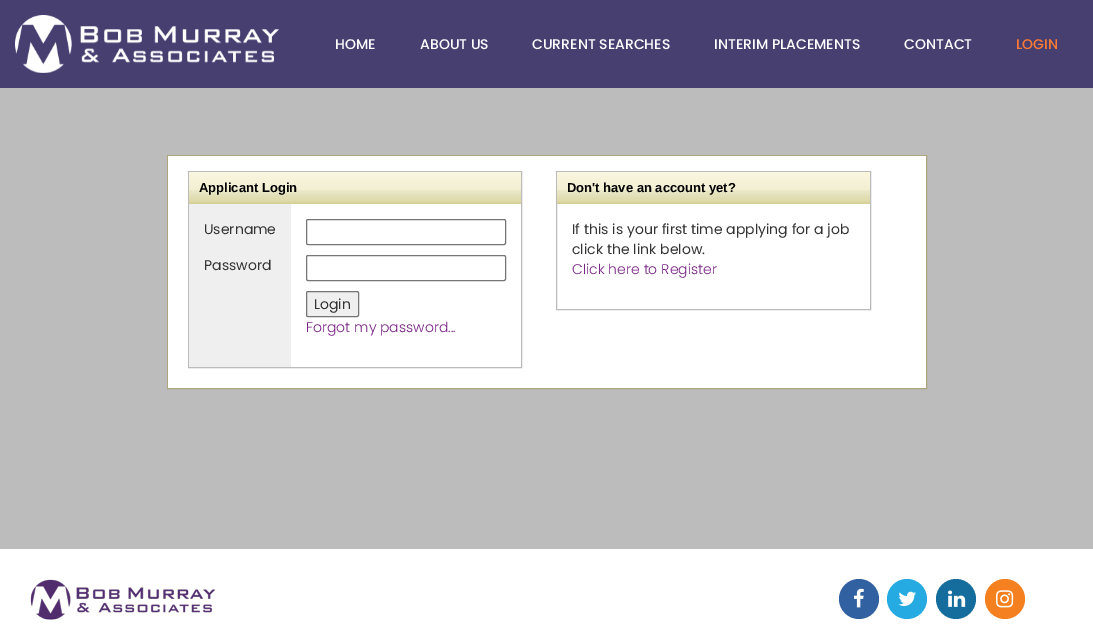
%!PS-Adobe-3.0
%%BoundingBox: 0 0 1093 626
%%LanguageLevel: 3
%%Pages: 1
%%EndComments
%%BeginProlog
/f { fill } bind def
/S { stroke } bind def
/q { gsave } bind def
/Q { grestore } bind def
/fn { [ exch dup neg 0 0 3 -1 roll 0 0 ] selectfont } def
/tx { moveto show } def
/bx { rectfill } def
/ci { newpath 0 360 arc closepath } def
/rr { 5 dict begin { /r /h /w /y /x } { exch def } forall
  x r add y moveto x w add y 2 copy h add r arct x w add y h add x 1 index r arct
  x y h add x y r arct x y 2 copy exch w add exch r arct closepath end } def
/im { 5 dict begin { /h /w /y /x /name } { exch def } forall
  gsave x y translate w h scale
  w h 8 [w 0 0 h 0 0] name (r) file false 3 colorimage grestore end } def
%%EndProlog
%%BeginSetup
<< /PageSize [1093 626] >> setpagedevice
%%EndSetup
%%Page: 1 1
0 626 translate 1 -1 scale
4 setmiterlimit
0.737 setgray
0 0 1093 626 bx
0.282 0.247 0.443 setrgbcolor
0 0 1093 88 bx
(image0.raw) 15 15 264 58 im
/Poppins-Medium 14 fn
1 setgray
(HOME) 335 49 tx
(ABOUT US) 420 49 tx
(CURRENT SEARCHES) 532 49 tx
(INTERIM PLACEMENTS) 714 49 tx
(CONTACT) 904 49 tx
1 0.482 0.2 setrgbcolor
(LOGIN) 1016 49 tx
0.671 0.655 0.482 setrgbcolor
167.5 155.5 759 233 rectstroke
1 setgray
168 156 758 232 bx
0.733 setgray
188.5 171.5 333 196 rectstroke
(image1.raw) 189 172 332 32 im
/LiberationSans-Bold 13 fn
0 setgray
(Applicant Login) 199 192 tx
0.937 setgray
189 204 102 163 bx
/Poppins-Regular 14 fn
0.2 setgray
(Username) 204 234 tx
0.463 setgray
306.5 219.5 199 25 1.5 rr S
0.2 setgray
(Password) 204 270 tx
0.463 setgray
306.5 255.5 199 25 1.5 rr S
0.937 setgray
306.5 291.5 52 25 1.5 rr q f Q
0.463 setgray
S
0.2 setgray
(Login) 314 309 tx
/Poppins-Light 14 fn
0.475 0.133 0.522 setrgbcolor
(Forgot my password...) 306 332 tx
0.733 setgray
556.5 171.5 314 138 rectstroke
(image2.raw) 557 172 313 32 im
/LiberationSans-Bold 13 fn
0 setgray
(Don't have an account yet?) 567 192 tx
/Poppins-Regular 14 fn
0.2 setgray
(If this is your first time applying for a job) 572 234 tx
(click the link below.) 572 254 tx
/Poppins-Light 14 fn
0.475 0.133 0.522 setrgbcolor
(Click here to Register) 572 274 tx
1 setgray
0 549 1093 77 bx
(image3.raw) 30 579 185 41 im
0.196 0.38 0.631 setrgbcolor
859 599 20 ci f
(image4.raw) 854 588 10 20 im
0.145 0.667 0.882 setrgbcolor
907 599 20 ci f
(image5.raw) 898 591 18 15 im
0.082 0.427 0.616 setrgbcolor
956 599 20 ci f
(image6.raw) 948 590 18 17 im
0.961 0.502 0.125 setrgbcolor
1005 599 20 ci f
(image7.raw) 996 590 18 18 im
showpage
%%EOF
